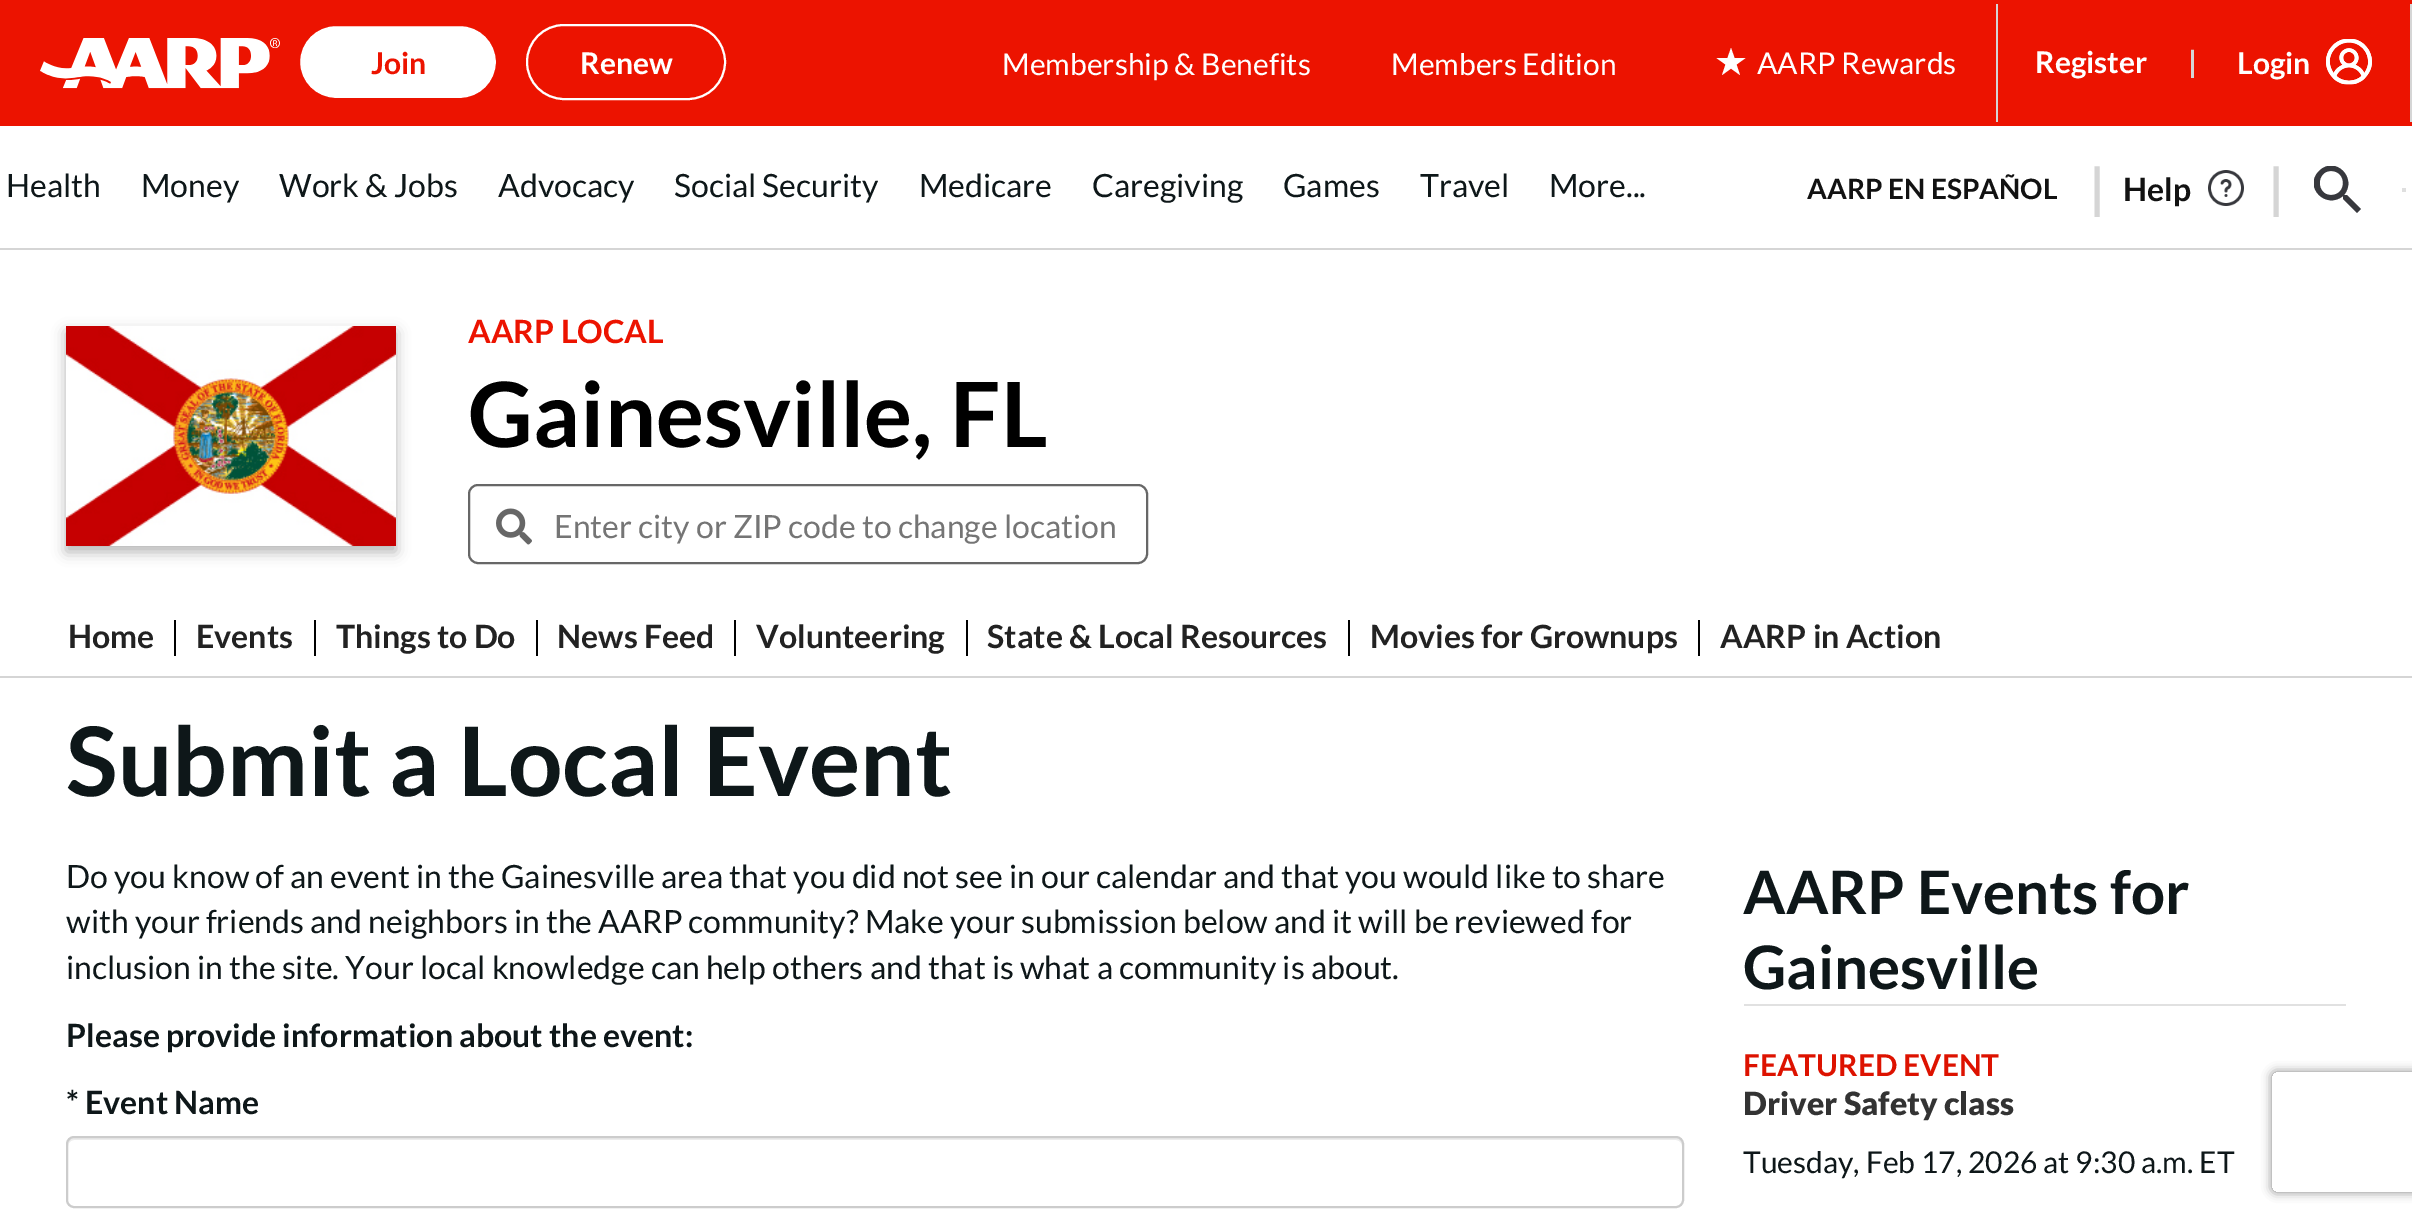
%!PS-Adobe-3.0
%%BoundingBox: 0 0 2412 1220
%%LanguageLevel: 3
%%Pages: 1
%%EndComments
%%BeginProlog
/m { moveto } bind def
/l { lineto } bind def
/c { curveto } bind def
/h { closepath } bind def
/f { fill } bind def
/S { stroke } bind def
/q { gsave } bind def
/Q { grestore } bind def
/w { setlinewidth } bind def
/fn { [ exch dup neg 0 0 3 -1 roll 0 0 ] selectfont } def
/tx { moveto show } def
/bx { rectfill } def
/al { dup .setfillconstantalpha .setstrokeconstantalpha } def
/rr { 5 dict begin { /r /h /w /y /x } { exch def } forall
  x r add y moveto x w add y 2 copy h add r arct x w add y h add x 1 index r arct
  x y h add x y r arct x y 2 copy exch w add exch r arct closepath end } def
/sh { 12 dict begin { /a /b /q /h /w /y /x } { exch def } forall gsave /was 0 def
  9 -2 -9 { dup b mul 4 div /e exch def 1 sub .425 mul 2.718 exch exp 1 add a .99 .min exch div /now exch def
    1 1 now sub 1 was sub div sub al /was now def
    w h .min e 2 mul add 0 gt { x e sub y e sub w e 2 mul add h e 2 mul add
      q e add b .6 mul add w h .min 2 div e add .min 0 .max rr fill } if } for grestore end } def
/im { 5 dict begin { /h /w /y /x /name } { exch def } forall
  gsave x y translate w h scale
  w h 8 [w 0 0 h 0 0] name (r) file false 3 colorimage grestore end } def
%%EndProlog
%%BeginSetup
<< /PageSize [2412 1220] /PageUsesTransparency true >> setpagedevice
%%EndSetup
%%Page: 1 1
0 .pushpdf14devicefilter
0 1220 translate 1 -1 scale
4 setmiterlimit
1 setgray
0 0 2412 1220 bx
0.925 0.075 0 setrgbcolor
0 0 2412 126 bx
(image0.raw) 40 38 240 51 im
1 setgray
299 25 198 74 37 rr q f Q
0.925 0.075 0 setrgbcolor
2 w
S
/Lato-Bold 30 fn
(Join) 371 74 tx
1 setgray
527 25 198 74 37 rr S
(Renew) 580 74 tx
/Lato-Regular 30 fn
(Membership & Benefits) 1002 75 tx
(Members Edition) 1391 75 tx
0.835 setgray
1996 4 2 118 bx
1 setgray
1727.5 58 m 1716.5 58 l 1725.5 64.5 l 1722 75 l 1731 68.5 l 1740 75 l 1736.5 64.5 l 1745.5 58 l 1734.5 58 l 1731 48 l h f
(AARP Rewards) 1757 74 tx
/Lato-Bold 30 fn
(Register) 2035 73 tx
0.835 setgray
(|) 2188 73 tx
2410 4 2 118 bx
1 setgray
(Login) 2237 74 tx
(image1.raw) 2326 39 46 46 im
0.835 setgray
0 248 2412 2 bx
/Lato-Regular 32 fn
0.055 0.09 0.098 setrgbcolor
(Health) 6 197 tx
(Money) 141 197 tx
(Work & Jobs) 279 197 tx
(Advocacy) 498 197 tx
(Social Security) 674 197 tx
(Medicare) 919 197 tx
(Caregiving) 1092 197 tx
(Games) 1283 197 tx
(Travel) 1420 197 tx
(More...) 1549 197 tx
/Lato-Bold 28 fn
0.071 setgray
(AARP EN ESPAÑOL) 1807 199 tx
/Lato-Bold 54 fn
0.835 setgray
2089 208 m -7 0 (|) ashow
/Lato-Bold 32 fn
0.071 setgray
(Help) 2123 201 tx
(image2.raw) 2208 170 36 36 im
/Lato-Bold 54 fn
0.835 setgray
2268 208 m -7 0 (|) ashow
q
2314 166 48 48 rectclip
0.216 0.22 0.239 setrgbcolor
2347 195 m 2345 195 l 2344 195 l 2358 178 2335 155 2319 171 c 2303 187 2326 210 2343 196 c 2343 197 l 2343 199 l 2357 213 l 2361 209 l h 2331 195 m 2316 195 2316 171 2331 171 c 2347 171 2347 195 2331 195 c h f
Q
0.875 setgray
2402 188 4 4 bx
0 setgray
66 332 330 220 0 7 0.3 sh
(image3.raw) 66 326 330 220 im
/Lato-Bold 32 fn
0.925 0.075 0 setrgbcolor
(AARP LOCAL) 468 343 tx
/Lato-Bold 90 fn
0 setgray
(Gainesville, FL) 468 447 tx
0.404 setgray
469 485 678 78 9 rr S
(image4.raw) 496 508 36 37 im
/Lato-Regular 32 fn
0.459 setgray
(Enter city or ZIP code to change location) 554 538 tx
0.835 setgray
0 676 2412 2 bx
/Lato-Bold 32 fn
0.133 setgray
(Home) 68 648 tx
0 setgray
174 620 2 36 bx
0.133 setgray
(Events) 196 648 tx
0 setgray
314 620 2 36 bx
0.133 setgray
(Things to Do) 336 648 tx
0 setgray
536 620 2 36 bx
0.133 setgray
(News Feed) 557 648 tx
0 setgray
734 620 2 36 bx
0.133 setgray
(Volunteering) 756 648 tx
0 setgray
966 620 2 36 bx
0.133 setgray
(State & Local Resources) 987 648 tx
0 setgray
1348 620 2 36 bx
0.133 setgray
(Movies for Grownups) 1370 648 tx
0 setgray
1698 620 2 36 bx
0.133 setgray
(AARP in Action) 1720 648 tx
/Lato-Bold 96 fn
0.055 0.09 0.098 setrgbcolor
(Submit a Local Event) 66 796 tx
/Lato-Regular 32 fn
(Do you know of an event in the Gainesville area that you did not see in our calendar and that you would like to share) 66 888 tx
(with your friends and neighbors in the AARP community? Make your submission below and it will be reviewed for) 66 933 tx
(inclusion in the site. Your local knowledge can help others and that is what a community is about.) 66 979 tx
/Lato-Bold 32 fn
(Please provide information about the event:) 66 1047 tx
(* Event Name) 66 1114 tx
0.925 setgray
74 1140 m 1676 1140 l 1679 1140 1682 1143 1682 1146 c 1682 1142 1681 1138 1676 1138 c 74 1138 l 69 1138 68 1142 68 1146 c 68 1143 71 1140 74 1140 c h f
0.8 setgray
67 1137 1616 70 7 rr S
/Lato-Bold 60 fn
0.055 0.09 0.098 setrgbcolor
(AARP Events for) 1743 914 tx
(Gainesville) 1743 989 tx
0.882 setgray
1744 1004 602 2 bx
/Lato-Bold 30 fn
0.867 0.071 0 setrgbcolor
(FEATURED EVENT) 1743 1076 tx
/Lato-Black 32 fn
0.2 setgray
(Driver Safety class) 1743 1115 tx
/Lato-Regular 30 fn
0.055 0.09 0.098 setrgbcolor
(Tuesday, Feb 17, 2026 at 9:30 a.m. ET) 1743 1173 tx
q
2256 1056 m 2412 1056 l 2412 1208 l 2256 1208 l h 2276 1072 m 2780 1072 l 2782 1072 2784 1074 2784 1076 c 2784 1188 l 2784 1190 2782 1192 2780 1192 c 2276 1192 l 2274 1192 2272 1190 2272 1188 c 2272 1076 l 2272 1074 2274 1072 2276 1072 c h eoclip newpath
0.502 setgray
2272 1072 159 120 4 5 1 sh
Q
.poppdf14devicefilter showpage
%%EOF
